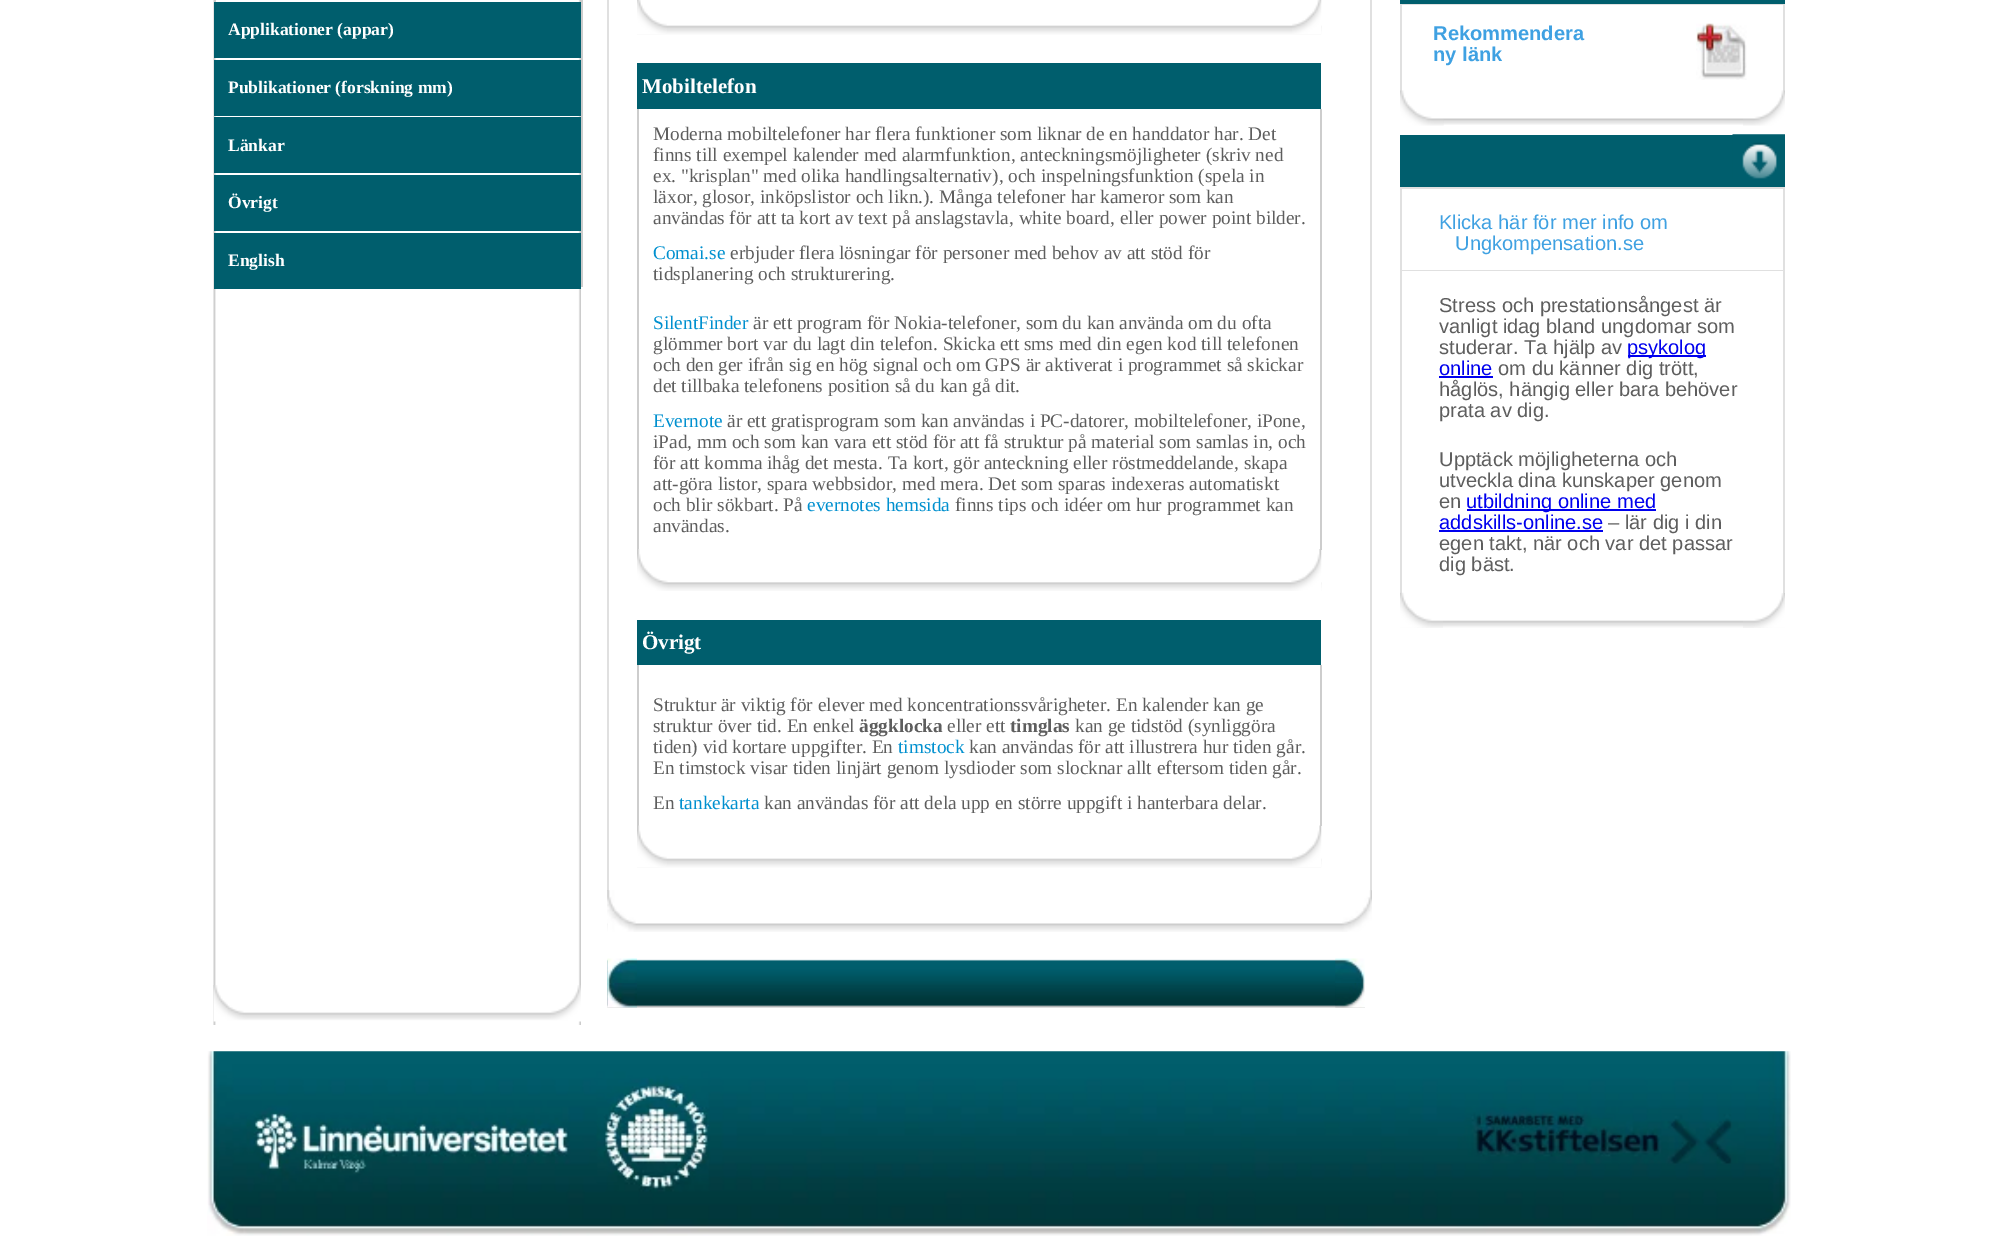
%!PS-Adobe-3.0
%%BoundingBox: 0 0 1997 1240
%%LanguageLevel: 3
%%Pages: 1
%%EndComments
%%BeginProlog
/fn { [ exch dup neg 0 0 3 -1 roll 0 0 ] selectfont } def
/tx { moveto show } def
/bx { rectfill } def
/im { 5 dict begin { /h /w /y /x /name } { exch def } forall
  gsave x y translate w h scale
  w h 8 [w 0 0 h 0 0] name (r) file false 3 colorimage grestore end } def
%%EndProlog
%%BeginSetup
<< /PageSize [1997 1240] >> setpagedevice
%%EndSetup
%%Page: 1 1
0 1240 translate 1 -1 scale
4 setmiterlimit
1 setgray
0 0 1997 1240 bx
(image0.raw) 213 0 368 1025 im
0.8 setgray
214 0 2 2 bx
0 0.369 0.427 setrgbcolor
214 2 367 56 bx
/LiberationSerif-Bold 17.5 fn
1 setgray
(Applikationer \(appar\)) 228 35 tx
0 0.369 0.427 setrgbcolor
214 60 367 56 bx
1 setgray
(Publikationer \(forskning mm\)) 228 93 tx
0 0.369 0.427 setrgbcolor
214 117 367 56 bx
1 setgray
(Länkar) 228 151 tx
0 0.369 0.427 setrgbcolor
214 175 367 56 bx
1 setgray
(Övrigt) 228 208 tx
0 0.369 0.427 setrgbcolor
214 233 367 56 bx
1 setgray
(English) 228 266 tx
0.8 setgray
581 0 2 287 bx
(image1.raw) 607 923 735 9 im
0.878 setgray
607 0 765 891 bx
1 setgray
609 0 761 891 bx
(image2.raw) 637 25 685 10 im
(image3.raw) 637 0 30 34 im
(image4.raw) 1292 0 30 34 im
(image5.raw) 668 582 654 9 im
0 0.369 0.427 setrgbcolor
637 63 684 46 bx
/LiberationSerif-Bold 21 fn
1 setgray
(Mobiltelefon) 642 93 tx
0.804 setgray
1320 109 2 441 bx
637 109 2 441 bx
/LiberationSerif-Regular 19.25 fn
0.369 setgray
(Moderna mobiltelefoner har flera funktioner som liknar de en handdator har. Det) 653 140 tx
(finns till exempel kalender med alarmfunktion, anteckningsmöjligheter \(skriv ned) 653 161 tx
(ex. "krisplan" med olika handlingsalternativ\), och inspelningsfunktion \(spela in) 653 182 tx
(läxor, glosor, inköpslistor och likn.\). Många telefoner har kameror som kan) 653 203 tx
(användas för att ta kort av text på anslagstavla, white board, eller power point bilder.) 653 224 tx
0 0.565 0.812 setrgbcolor
(Comai.se) 653 259 tx
0.369 setgray
(erbjuder flera lösningar för personer med behov av att stöd för) 730 259 tx
(tidsplanering och strukturering.) 653 280 tx
0 0.565 0.812 setrgbcolor
(SilentFinder) 653 329 tx
0.369 setgray
(är ett program för Nokia-telefoner, som du kan använda om du ofta) 753 329 tx
(glömmer bort var du lagt din telefon. Skicka ett sms med din egen kod till telefonen) 653 350 tx
(och den ger ifrån sig en hög signal och om GPS är aktiverat i programmet så skickar) 653 371 tx
(det tillbaka telefonens position så du kan gå dit.) 653 392 tx
0 0.565 0.812 setrgbcolor
(Evernote) 653 427 tx
0.369 setgray
(är ett gratisprogram som kan användas i PC-datorer, mobiltelefoner, iPone,) 727 427 tx
(iPad, mm och som kan vara ett stöd för att få struktur på material som samlas in, och) 653 448 tx
(för att komma ihåg det mesta. Ta kort, gör anteckning eller röstmeddelande, skapa) 653 469 tx
(att-göra listor, spara webbsidor, med mera. Det som sparas indexeras automatiskt) 653 490 tx
(och blir sökbart. På) 653 511 tx
0 0.565 0.812 setrgbcolor
(evernotes hemsida) 807 511 tx
0.369 setgray
(finns tips och idéer om hur programmet kan) 955 511 tx
(användas.) 653 532 tx
(image6.raw) 637 549 31 42 im
(image7.raw) 1291 549 31 42 im
(image2.raw) 637 858 685 10 im
0 0.369 0.427 setrgbcolor
637 620 684 45 bx
/LiberationSerif-Bold 21 fn
1 setgray
(Övrigt) 642 649 tx
0.804 setgray
1320 665 2 161 bx
637 665 2 161 bx
/LiberationSerif-Regular 19.25 fn
0.369 setgray
(Struktur är viktig för elever med koncentrationssvårigheter. En kalender kan ge) 653 711 tx
(struktur över tid. En enkel) 653 732 tx
/LiberationSerif-Bold 19.25 fn
(äggklocka) 859 732 tx
/LiberationSerif-Regular 19.25 fn
(eller ett) 947 732 tx
/LiberationSerif-Bold 19.25 fn
(timglas) 1010 732 tx
/LiberationSerif-Regular 19.25 fn
(kan ge tidstöd \(synliggöra) 1075 732 tx
(tiden\) vid kortare uppgifter. En) 653 753 tx
0 0.565 0.812 setrgbcolor
(timstock) 898 753 tx
0.369 setgray
(kan användas för att illustrera hur tiden går.) 969 753 tx
(En timstock visar tiden linjärt genom lysdioder som slocknar allt eftersom tiden går.) 653 774 tx
(En) 653 809 tx
0 0.565 0.812 setrgbcolor
(tankekarta) 679 809 tx
0.369 setgray
(kan användas för att dela upp en större uppgift i hanterbara delar.) 764 809 tx
(image8.raw) 637 825 30 42 im
(image9.raw) 1292 825 30 42 im
(image10.raw) 1342 890 30 42 im
(image11.raw) 607 890 29 42 im
(image12.raw) 607 959 758 49 im
(image13.raw) 1335 958 30 25 im
(image14.raw) 607 958 30 25 im
(image15.raw) 1335 983 30 25 im
(image16.raw) 607 983 30 25 im
(image17.raw) 1443 118 300 7 im
0 0.369 0.427 setrgbcolor
1400 0 385 4 bx
0.878 setgray
1400 4 385 87 bx
1 setgray
1402 5 381 86 bx
/LiberationSans-Bold 20.1 fn
0.247 0.631 0.886 setrgbcolor
(Rekommendera) 1433 40 tx
(ny länk) 1433 61 tx
(image18.raw) 1696 23 51 57 im
(image19.raw) 1743 90 42 36 im
(image20.raw) 1400 90 44 36 im
(image21.raw) 1400 620 385 8 im
0 0.369 0.427 setrgbcolor
1400 135 385 52 bx
(image22.raw) 1732 134 53 45 im
0.878 setgray
1400 187 385 406 bx
1 setgray
1402 189 381 81 bx
/LiberationSans-Regular 20.1 fn
0.247 0.631 0.886 setrgbcolor
(Klicka här för mer info om) 1439 229 tx
(Ungkompensation.se) 1455 250 tx
1 setgray
1402 271 381 322 bx
0.369 setgray
(Stress och prestationsångest är) 1439 312 tx
(vanligt idag bland ungdomar som) 1439 333 tx
(studerar. Ta hjälp av) 1439 354 tx
0 0 0.933 setrgbcolor
1628 355 78 2 bx
(psykolog) 1627 354 tx
(online) 1439 375 tx
1439 376 54 2 bx
0.369 setgray
(om du känner dig trött,) 1498 375 tx
(håglös, hängig eller bara behöver) 1439 396 tx
(prata av dig.) 1439 417 tx
(Upptäck möjligheterna och) 1439 466 tx
(utveckla dina kunskaper genom) 1439 487 tx
(en) 1439 508 tx
0 0 0.933 setrgbcolor
1467 509 189 2 bx
(utbildning online med) 1466 508 tx
(addskills-online.se) 1439 529 tx
1439 530 164 2 bx
0.369 setgray
(– lär dig i din) 1608 529 tx
(egen takt, när och var det passar) 1439 550 tx
(dig bäst.) 1439 571 tx
(image23.raw) 1743 593 42 35 im
(image24.raw) 1400 592 43 36 im
(image25.raw) 213 985 368 37 im
(image26.raw) 207 1051 1584 185 im
showpage
%%EOF
